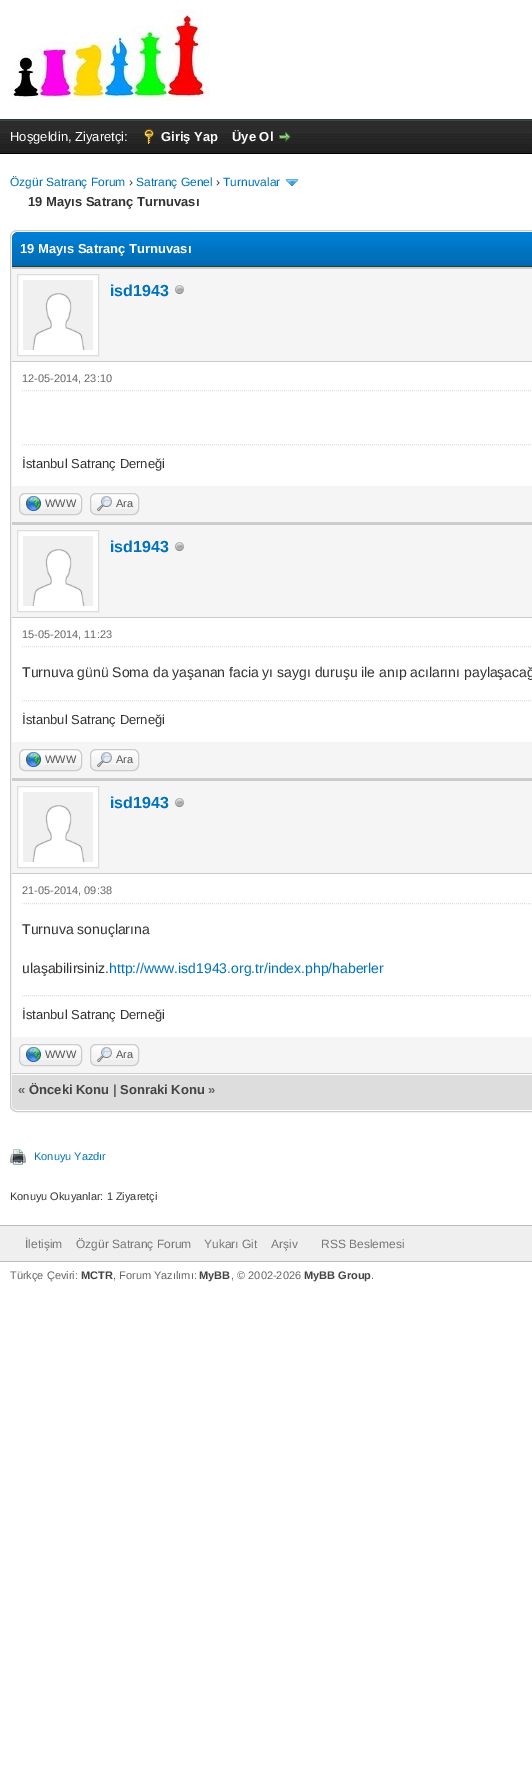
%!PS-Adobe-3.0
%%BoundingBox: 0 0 532 1775
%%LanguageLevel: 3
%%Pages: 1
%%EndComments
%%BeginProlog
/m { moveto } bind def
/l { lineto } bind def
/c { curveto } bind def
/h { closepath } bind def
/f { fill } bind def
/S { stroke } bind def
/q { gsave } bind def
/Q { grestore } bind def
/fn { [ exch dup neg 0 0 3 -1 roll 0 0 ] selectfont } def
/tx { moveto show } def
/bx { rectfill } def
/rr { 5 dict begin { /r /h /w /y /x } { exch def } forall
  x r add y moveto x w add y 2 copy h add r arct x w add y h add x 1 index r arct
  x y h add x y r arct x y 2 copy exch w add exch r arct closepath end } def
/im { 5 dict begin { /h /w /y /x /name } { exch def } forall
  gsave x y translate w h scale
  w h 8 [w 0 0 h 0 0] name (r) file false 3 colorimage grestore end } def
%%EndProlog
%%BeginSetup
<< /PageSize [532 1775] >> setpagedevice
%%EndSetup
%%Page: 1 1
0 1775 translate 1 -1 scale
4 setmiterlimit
1 setgray
0 0 532 1775 bx
0.149 0.235 0.188 setrgbcolor
0 119 532 1 bx
(image0.raw) 10 10 200 91 im
(image1.raw) 0 121 532 32 im
0.267 setgray
0 120 532 1 bx
0 setgray
0 153 532 1 bx
/LiberationSans-Regular 13 fn
1 setgray
(Hoşgeldin, Ziyaretçi:) 10 141 tx
(image2.raw) 144 129 10 15 im
/LiberationSans-Bold 13 fn
(Giriş Yap) 161 141 tx
(Üye Ol) 232 141 tx
(image3.raw) 279 132 12 10 im
/LiberationSans-Regular 12 fn
0 0.447 0.737 setrgbcolor
(Özgür Satranç Forum) 10 186 tx
0.2 setgray
(›) 129 186 tx
0 0.447 0.737 setrgbcolor
(Satranç Genel) 136 186 tx
0.2 setgray
(›) 216 186 tx
0 0.447 0.737 setrgbcolor
(Turnuvalar) 223 186 tx
(image4.raw) 285 179 14 7 im
/LiberationSans-Bold 13 fn
0.2 setgray
(19 Mayıs Satranç Turnuvası) 28 206 tx
0.8 setgray
10.5 230.5 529 881 6.5 rr S
(image5.raw) 12 232 520 34 im
0.149 0.235 0.188 setrgbcolor
12 266 520 1 bx
1 setgray
(19 Mayıs Satranç Turnuvası) 20 253 tx
0.961 setgray
12 269 520 92 bx
0.8 setgray
12 267 520 2 bx
12 361 520 1 bx
1 setgray
17.5 274.5 m 98.5 274.5 l 98.5 355.5 l 17.5 355.5 l h q f Q
0.867 setgray
S
(image6.raw) 23 280 70 70 im
/LiberationSans-Bold 16 fn
0 0.447 0.737 setrgbcolor
(isd1943) 110 296 tx
(image7.raw) 175 285 9 9 im
0.867 setgray
[1 1] 0 setdash
22 390.5 m 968 390.5 l S
/LiberationSans-Regular 11 fn
0.4 setgray
(12-05-2014, 23:10) 22 382 tx
0.867 setgray
22 444.5 m 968 444.5 l S
/LiberationSans-Regular 13 fn
0.2 setgray
(İstanbul Satranç Derneği) 22 468 tx
0.961 setgray
12 486 520 36 bx
0.8 setgray
12 522 520 3 bx
0.933 setgray
19 493 63 22 6 rr f
(image8.raw) 19 494 63 15 im
0.8 setgray
[] 0 setdash
19.5 493.5 62 21 5.5 rr S
(image9.raw) 26 496 15 15 im
/LiberationSans-Regular 11 fn
0.333 setgray
(WWW) 45 507 tx
0.933 setgray
90 493 49 22 6 rr f
(image10.raw) 90 494 49 15 im
0.8 setgray
90.5 493.5 48 21 5.5 rr S
(image11.raw) 97 496 15 15 im
0.333 setgray
(Ara) 116 507 tx
0.961 setgray
12 525 520 92 bx
0.8 setgray
12 617 520 1 bx
1 setgray
17.5 530.5 m 98.5 530.5 l 98.5 611.5 l 17.5 611.5 l h q f Q
0.867 setgray
S
(image6.raw) 23 536 70 70 im
/LiberationSans-Bold 16 fn
0 0.447 0.737 setrgbcolor
(isd1943) 110 552 tx
(image7.raw) 175 542 9 9 im
0.867 setgray
[1 1] 0 setdash
22 646.5 m 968 646.5 l S
/LiberationSans-Regular 11 fn
0.4 setgray
(15-05-2014, 11:23) 22 638 tx
/LiberationSans-Regular 14 fn
0.2 setgray
(Turnuva günü Soma da yaşanan facia yı saygı duruşu ile anıp acılarını paylaşacağ) 22 677 tx
0.867 setgray
22 700.5 m 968 700.5 l S
/LiberationSans-Regular 13 fn
0.2 setgray
(İstanbul Satranç Derneği) 22 724 tx
0.961 setgray
12 742 520 36 bx
0.8 setgray
12 778 520 3 bx
0.933 setgray
19 749 63 22 6 rr f
(image8.raw) 19 750 63 15 im
0.8 setgray
[] 0 setdash
19.5 749.5 62 21 5.5 rr S
(image9.raw) 26 752 15 15 im
/LiberationSans-Regular 11 fn
0.333 setgray
(WWW) 45 763 tx
0.933 setgray
90 749 49 22 6 rr f
(image10.raw) 90 750 49 15 im
0.8 setgray
90.5 749.5 48 21 5.5 rr S
(image11.raw) 97 752 15 15 im
0.333 setgray
(Ara) 116 763 tx
0.961 setgray
12 781 520 92 bx
0.8 setgray
12 873 520 1 bx
1 setgray
17.5 786.5 m 98.5 786.5 l 98.5 867.5 l 17.5 867.5 l h q f Q
0.867 setgray
S
(image6.raw) 23 792 70 70 im
/LiberationSans-Bold 16 fn
0 0.447 0.737 setrgbcolor
(isd1943) 110 808 tx
(image7.raw) 175 798 9 9 im
0.867 setgray
[1 1] 0 setdash
22 903.5 m 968 903.5 l S
/LiberationSans-Regular 11 fn
0.4 setgray
(21-05-2014, 09:38) 22 894 tx
/LiberationSans-Regular 14 fn
0.2 setgray
(Turnuva sonuçlarına) 22 934 tx
(ulaşabilirsiniz.) 22 973 tx
0 0.447 0.737 setrgbcolor
(http://www.isd1943.org.tr/index.php/haberler) 109 973 tx
0.867 setgray
22 995.5 m 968 995.5 l S
/LiberationSans-Regular 13 fn
0.2 setgray
(İstanbul Satranç Derneği) 22 1019 tx
0.961 setgray
12 1037 520 36 bx
0.8 setgray
12 1073 520 1 bx
0.933 setgray
19 1044 63 22 6 rr f
(image8.raw) 19 1045 63 15 im
0.8 setgray
[] 0 setdash
19.5 1044.5 62 21 5.5 rr S
(image9.raw) 26 1047 15 15 im
/LiberationSans-Regular 11 fn
0.333 setgray
(WWW) 45 1058 tx
0.933 setgray
90 1044 49 22 6 rr f
(image10.raw) 90 1045 49 15 im
0.8 setgray
90.5 1044.5 48 21 5.5 rr S
(image11.raw) 97 1047 15 15 im
0.333 setgray
(Ara) 116 1058 tx
0.867 setgray
12 1074 m 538 1074 l 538 1104 l 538 1107.5 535.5 1110 532 1110 c 18 1110 l 14.5 1110 12 1107.5 12 1104 c h f
1 setgray
12 1074 520 1 bx
/LiberationSans-Bold 13 fn
0.4 setgray
(«) 18 1094 tx
0.267 setgray
(Önceki Konu) 29 1094 tx
0.4 setgray
(|) 113 1094 tx
0.267 setgray
(Sonraki Konu) 120 1094 tx
0.4 setgray
(») 208 1094 tx
(image12.raw) 10 1149 16 16 im
/LiberationSans-Regular 11 fn
0 0.447 0.737 setrgbcolor
(Konuyu Yazdır) 34 1160 tx
0.2 setgray
(Konuyu Okuyanlar: 1 Ziyaretçi) 10 1200 tx
0.937 setgray
0 1226 532 35 bx
0.733 setgray
0 1225 532 1 bx
0 1261 532 1 bx
/LiberationSans-Regular 12 fn
0.467 setgray
(İletişim) 25 1248 tx
(Özgür Satranç Forum) 76 1248 tx
(Yukarı Git) 204 1248 tx
(Arşiv) 271 1248 tx
(RSS Beslemesi) 321 1248 tx
/LiberationSans-Regular 11 fn
0.4 setgray
(Türkçe Çeviri:) 10 1279 tx
/LiberationSans-Bold 11 fn
0.267 setgray
(MCTR) 81 1279 tx
/LiberationSans-Regular 11 fn
0.4 setgray
(, Forum Yazılımı:) 113 1279 tx
/LiberationSans-Bold 11 fn
0.267 setgray
(MyBB) 199 1279 tx
/LiberationSans-Regular 11 fn
0.4 setgray
(, © 2002-2026) 231 1279 tx
/LiberationSans-Bold 11 fn
0.267 setgray
(MyBB Group) 304 1279 tx
/LiberationSans-Regular 11 fn
0.4 setgray
(.) 371 1279 tx
showpage
%%EOF
